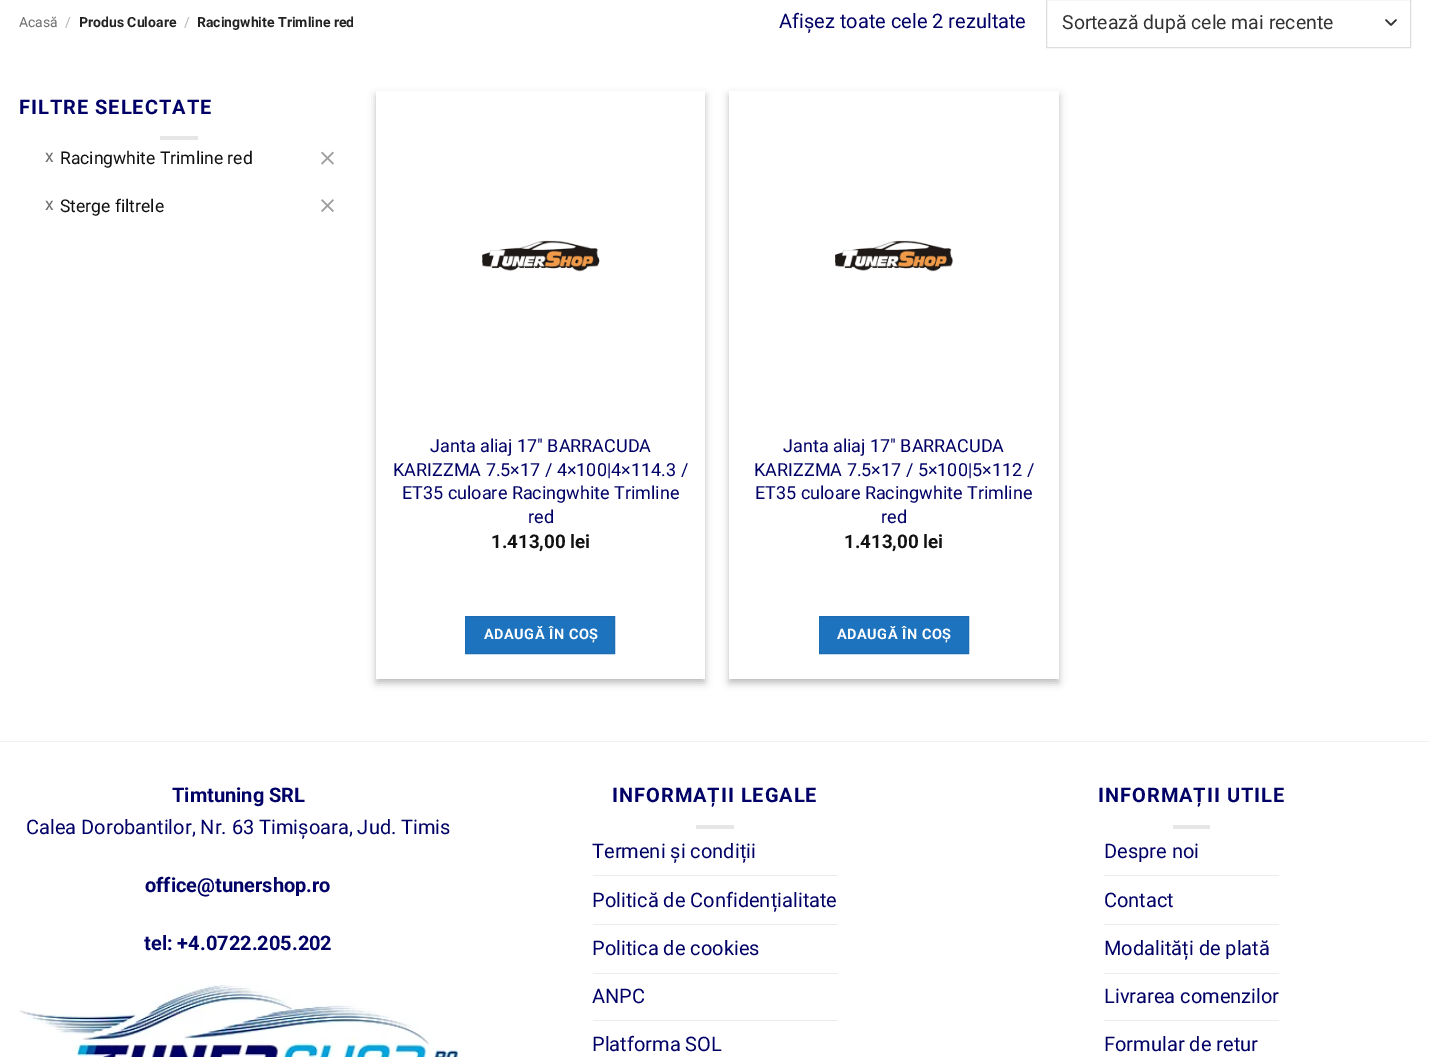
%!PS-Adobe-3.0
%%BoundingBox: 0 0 1429 1057
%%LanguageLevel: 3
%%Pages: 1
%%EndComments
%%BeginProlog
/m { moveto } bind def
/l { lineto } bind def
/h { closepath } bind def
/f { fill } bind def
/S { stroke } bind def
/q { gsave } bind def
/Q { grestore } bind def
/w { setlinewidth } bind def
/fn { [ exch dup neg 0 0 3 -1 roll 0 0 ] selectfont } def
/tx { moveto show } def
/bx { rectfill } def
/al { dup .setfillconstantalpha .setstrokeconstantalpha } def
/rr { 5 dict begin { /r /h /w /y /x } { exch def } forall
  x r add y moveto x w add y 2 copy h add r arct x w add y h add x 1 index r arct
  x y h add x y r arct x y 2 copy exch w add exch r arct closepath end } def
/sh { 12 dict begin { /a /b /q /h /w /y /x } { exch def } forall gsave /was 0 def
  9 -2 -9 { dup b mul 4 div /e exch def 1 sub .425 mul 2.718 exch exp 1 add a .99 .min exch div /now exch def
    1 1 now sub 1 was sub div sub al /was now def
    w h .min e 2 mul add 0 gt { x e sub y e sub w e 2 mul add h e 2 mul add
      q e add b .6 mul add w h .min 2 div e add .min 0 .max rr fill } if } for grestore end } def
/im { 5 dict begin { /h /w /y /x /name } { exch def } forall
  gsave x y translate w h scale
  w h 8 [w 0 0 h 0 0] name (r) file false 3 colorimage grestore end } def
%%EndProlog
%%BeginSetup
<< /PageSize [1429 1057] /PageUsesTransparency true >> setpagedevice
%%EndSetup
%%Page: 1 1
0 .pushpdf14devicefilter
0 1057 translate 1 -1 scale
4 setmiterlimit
1 setgray
0 0 1429 1057 bx
/Roboto-Regular 14 fn
0.431 setgray
(Acasă) 19 27 tx
0.698 setgray
(/) 65 27 tx
/Roboto-Bold 14 fn
0.133 setgray
(Produs Culoare) 79 27 tx
/Roboto-Regular 14 fn
0.698 setgray
(/) 184 27 tx
/Roboto-Bold 14 fn
0.133 setgray
(Racingwhite Trimline red) 197 27 tx
/Roboto-Regular 20 fn
0 0 0.4 setrgbcolor
(Afișez toate cele 2 rezultate) 779 28 tx
0.2 setgray
1.7 w
1 setlinecap
1 setlinejoin
1386 20 m 1391 25 l 1396 20 l S
0.867 setgray
1 w
0 setlinecap
0 setlinejoin
1046.5 -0.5 364 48 rectstroke
/Roboto-Regular 19.4 fn
0.2 setgray
(Sortează după cele mai recente) 1062 29 tx
/Roboto-Bold 20 fn
0 0 0.4 setrgbcolor
19 114 m 1 0 (FILTRE SELECTATE) ashow
0.902 setgray
160 136 38 4 bx
/Roboto-Regular 17.5 fn
0.431 setgray
(x) 45 162 tx
0.067 setgray
(Racingwhite Trimline red) 60 164 tx
(image0.raw) 321 151 13 14 im
0.431 setgray
(x) 45 210 tx
0.067 setgray
(Sterge filtrele) 60 212 tx
(image1.raw) 321 199 13 13 im
0 setgray
376 95 329 588 0 4 0.23 sh
381 100 319 578 0 4 0.16 sh
1 setgray
376 91 329 588 bx
(image2.raw) 482 240 118 32 im
/Roboto-Regular 18 fn
0 0 0.4 setrgbcolor
(Janta aliaj 17″ BARRACUDA) 430 452 tx
(KARIZZMA 7.5×17 / 4×100|4×114.3 /) 393 476 tx
(ET35 culoare Racingwhite Trimline) 402 499 tx
(red) 528 523 tx
/Roboto-Bold 18.75 fn
0.067 setgray
(1.413,00 lei) 491 548 tx
0.118 0.451 0.745 setrgbcolor
465.5 616.5 m 614.5 616.5 l 614.5 653.5 l 465.5 653.5 l h q f Q
0.114 0.427 0.71 setrgbcolor
S
/Roboto-Bold 14.5 fn
1 setgray
484 639 m 0.5 0 (ADAUGĂ ÎN COȘ) ashow
0 setgray
729 95 330 588 0 4 0.23 sh
734 100 320 578 0 4 0.16 sh
1 setgray
729 91 330 588 bx
(image3.raw) 835 240 119 32 im
/Roboto-Regular 18 fn
0 0 0.4 setrgbcolor
(Janta aliaj 17″ BARRACUDA) 783 452 tx
(KARIZZMA 7.5×17 / 5×100|5×112 /) 754 476 tx
(ET35 culoare Racingwhite Trimline) 755 499 tx
(red) 881 523 tx
/Roboto-Bold 18.75 fn
0.067 setgray
(1.413,00 lei) 844 548 tx
0.118 0.451 0.745 setrgbcolor
819.5 616.5 m 968.5 616.5 l 968.5 653.5 l 819.5 653.5 l h q f Q
0.114 0.427 0.71 setrgbcolor
S
/Roboto-Bold 14.5 fn
1 setgray
837 639 m 0.5 0 (ADAUGĂ ÎN COȘ) ashow
0.949 setgray
0 741 1429 1 bx
/Roboto-Bold 20 fn
0 0 0.4 setrgbcolor
(Timtuning SRL) 172 802 tx
/Roboto-Regular 20 fn
(Calea Dorobantilor, Nr. 63 Timișoara, Jud. Timis) 26 834 tx
/Roboto-Bold 20 fn
(office@tunershop.ro) 145 892 tx
(tel: +4.0722.205.202) 144 950 tx
(image4.raw) 19 985 439 72 im
612 802 m 1 0 (INFORMAȚII LEGALE) ashow
0.902 setgray
696 825 38 4 bx
/Roboto-Regular 20 fn
0 0 0.4 setrgbcolor
(Termeni și condiții) 592 858 tx
0.925 setgray
593 875 245 1 bx
0 0 0.4 setrgbcolor
(Politică de Confidențialitate) 592 907 tx
0.925 setgray
593 924 245 1 bx
0 0 0.4 setrgbcolor
(Politica de cookies) 592 955 tx
0.925 setgray
593 973 245 1 bx
0 0 0.4 setrgbcolor
(ANPC) 592 1003 tx
0.925 setgray
593 1020 245 1 bx
0 0 0.4 setrgbcolor
(Platforma SOL) 592 1051 tx
/Roboto-Bold 20 fn
1098 802 m 1 0 (INFORMAȚII UTILE) ashow
0.902 setgray
1173 825 37 4 bx
/Roboto-Regular 20 fn
0 0 0.4 setrgbcolor
(Despre noi) 1104 858 tx
0.925 setgray
1104 875 175 1 bx
0 0 0.4 setrgbcolor
(Contact) 1104 907 tx
0.925 setgray
1104 924 175 1 bx
0 0 0.4 setrgbcolor
(Modalități de plată) 1104 955 tx
0.925 setgray
1104 973 175 1 bx
0 0 0.4 setrgbcolor
(Livrarea comenzilor) 1104 1003 tx
0.925 setgray
1104 1020 175 1 bx
0 0 0.4 setrgbcolor
(Formular de retur) 1104 1051 tx
.poppdf14devicefilter showpage
%%EOF
